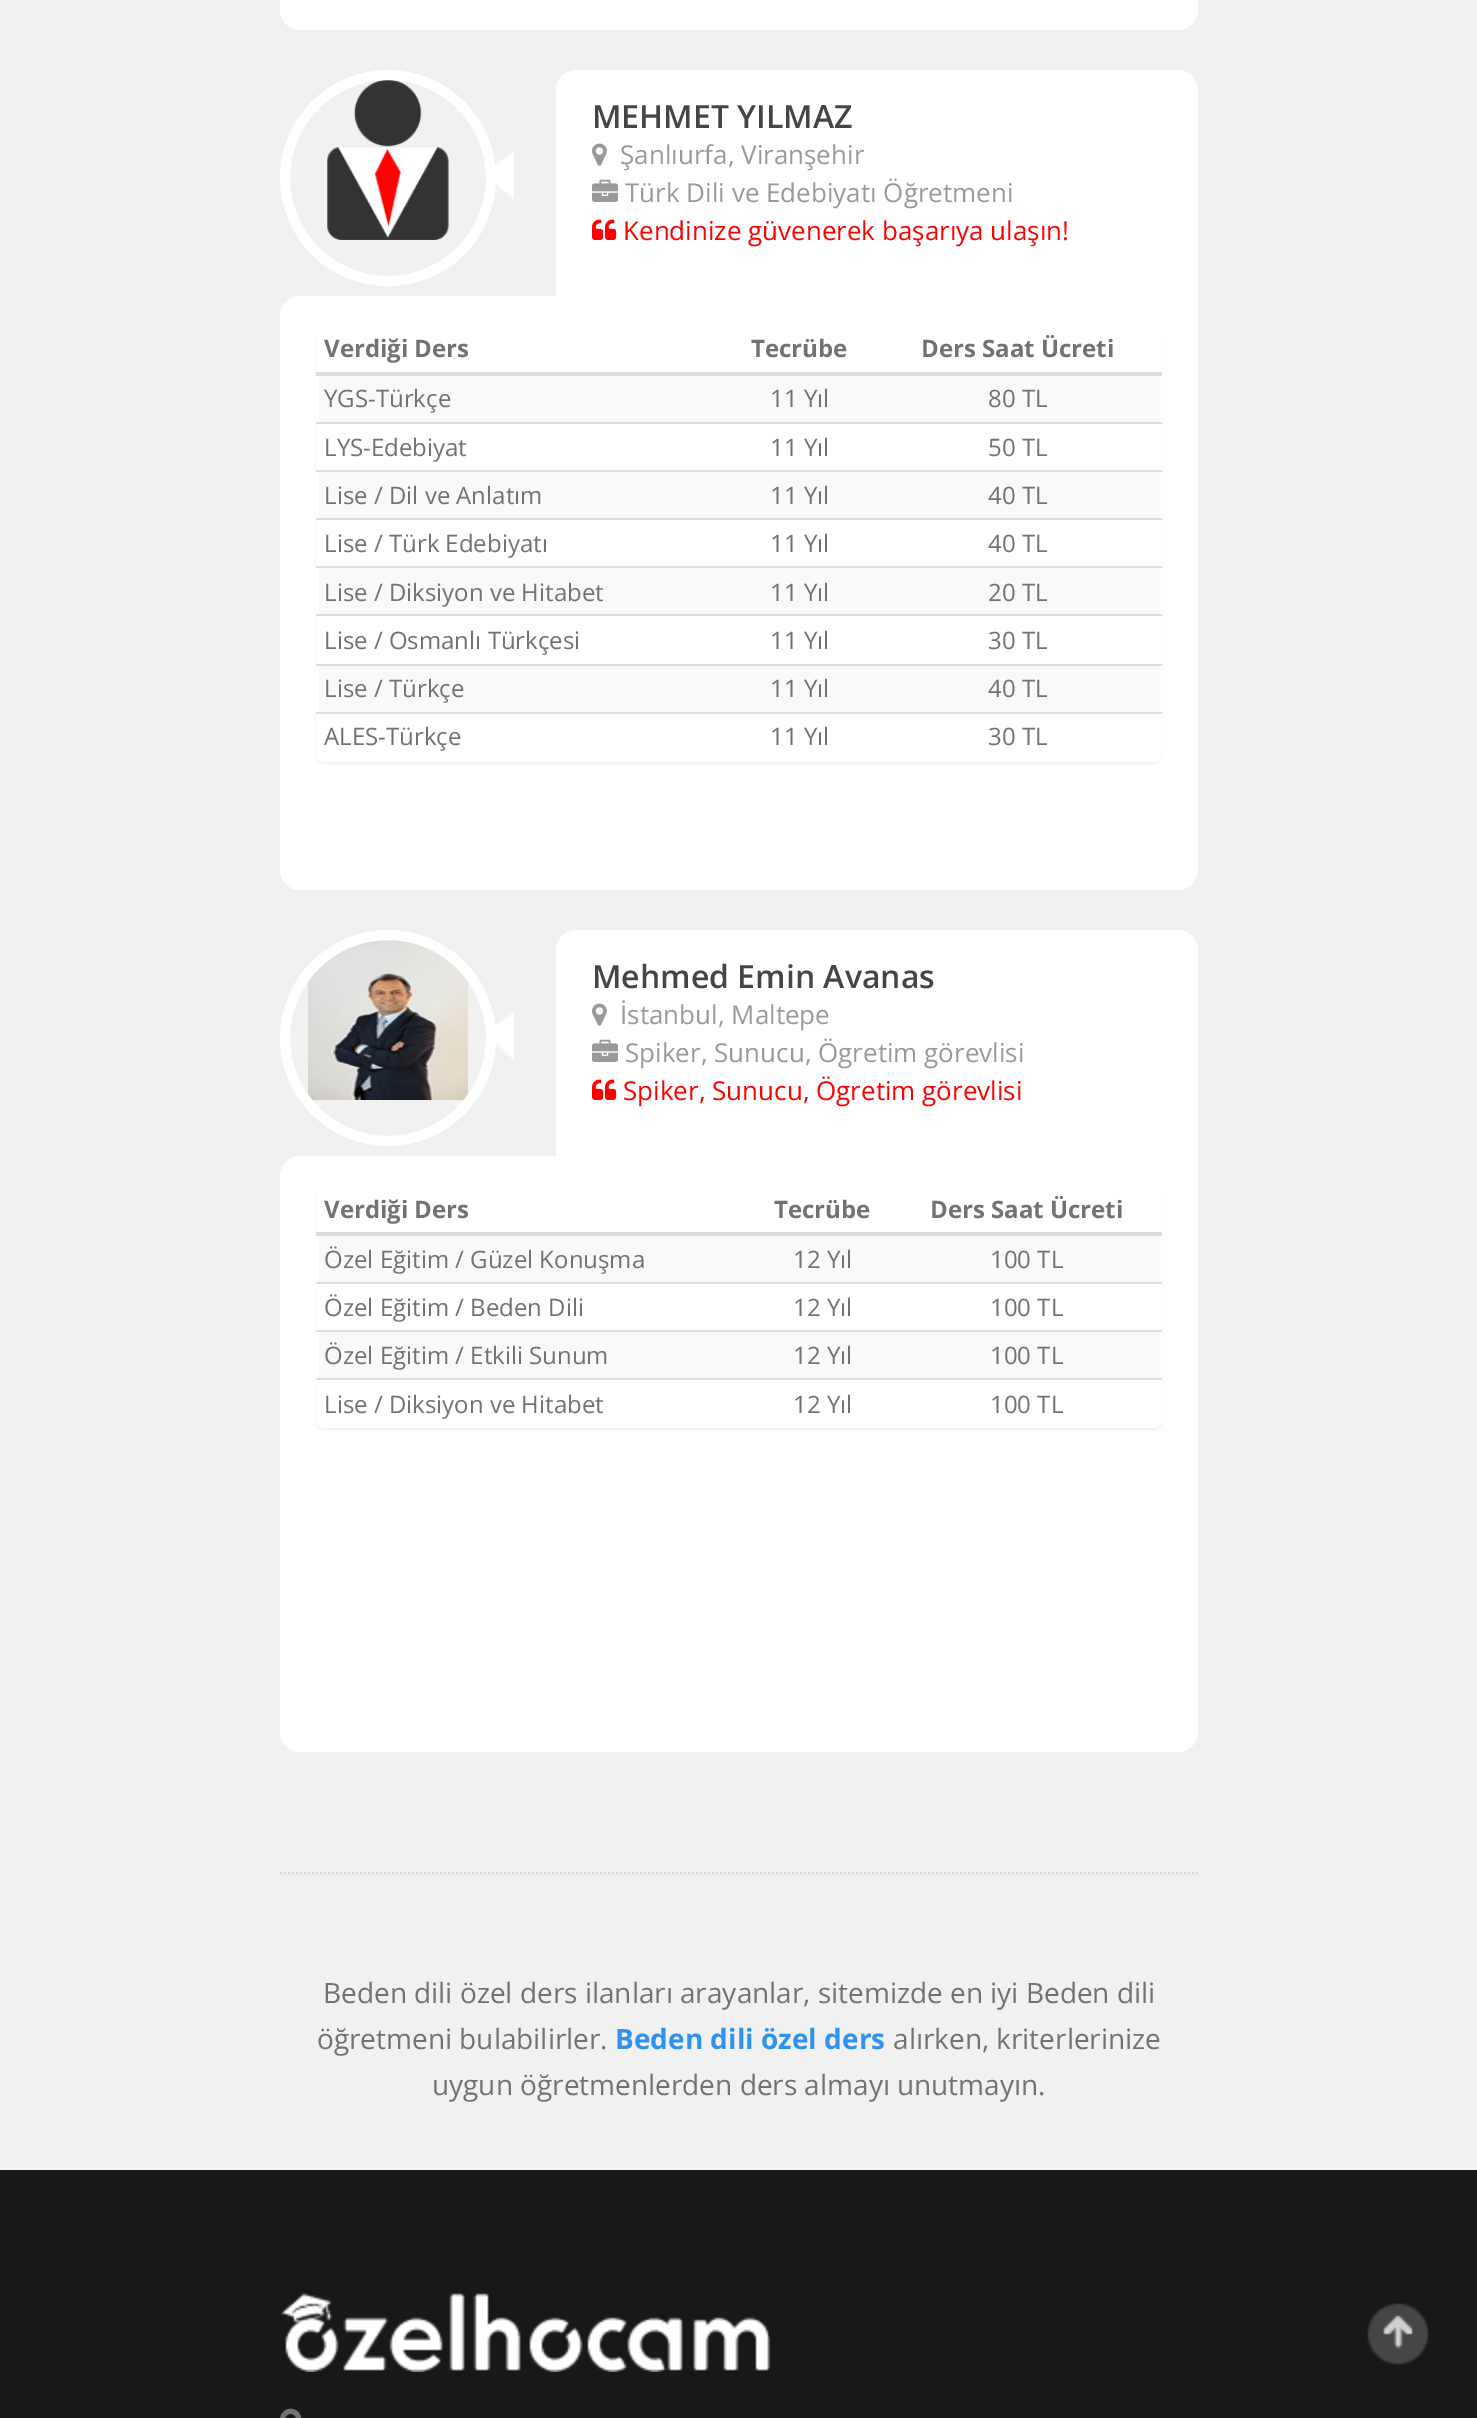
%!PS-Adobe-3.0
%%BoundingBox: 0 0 1477 2418
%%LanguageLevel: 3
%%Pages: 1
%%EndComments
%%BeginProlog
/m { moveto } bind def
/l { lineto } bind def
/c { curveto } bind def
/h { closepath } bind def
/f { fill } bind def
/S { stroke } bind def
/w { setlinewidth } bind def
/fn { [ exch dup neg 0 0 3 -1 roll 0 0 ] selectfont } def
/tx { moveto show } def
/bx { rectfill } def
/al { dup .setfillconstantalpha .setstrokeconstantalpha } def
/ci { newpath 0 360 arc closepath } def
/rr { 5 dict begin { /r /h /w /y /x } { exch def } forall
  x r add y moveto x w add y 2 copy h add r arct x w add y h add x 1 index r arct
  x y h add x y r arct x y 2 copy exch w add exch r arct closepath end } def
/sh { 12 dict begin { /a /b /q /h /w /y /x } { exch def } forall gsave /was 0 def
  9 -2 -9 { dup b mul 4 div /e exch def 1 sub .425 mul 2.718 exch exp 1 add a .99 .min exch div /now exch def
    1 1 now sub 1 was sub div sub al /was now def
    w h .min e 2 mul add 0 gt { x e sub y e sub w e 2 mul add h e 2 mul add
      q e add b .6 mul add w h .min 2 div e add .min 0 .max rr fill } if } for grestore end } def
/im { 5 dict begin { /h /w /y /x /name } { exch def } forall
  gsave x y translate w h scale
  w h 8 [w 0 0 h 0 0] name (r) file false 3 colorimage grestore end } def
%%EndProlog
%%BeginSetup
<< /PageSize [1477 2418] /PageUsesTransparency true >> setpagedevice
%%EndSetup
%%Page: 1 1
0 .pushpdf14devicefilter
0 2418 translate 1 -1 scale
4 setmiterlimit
0.945 setgray
0 0 1477 2418 bx
1 setgray
300 -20 m 1198 -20 l 1198 10 l 1198 21 1189 30 1178 30 c 300 30 l 289 30 280 21 280 10 c 280 0 l 280 -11 289 -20 300 -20 c h f
(image0.raw) 495 152 19 48 im
(image1.raw) 327 80 122 160 im
10 w
388 178 103 ci S
576 70 m 1178 70 l 1189 70 1198 79 1198 90 c 1198 296 l 556 296 l 556 90 l 556 79 565 70 576 70 c h f
/OpenSans-SemiBold 32 fn
0.271 setgray
(MEHMET YILMAZ) 592 128 tx
(image2.raw) 592 143 15 23 im
/OpenSans-Regular 26 fn
0.6 setgray
(Şanlıurfa, Viranşehir) 620 164 tx
(image3.raw) 592 179 26 23 im
(Türk Dili ve Edebiyatı Öğretmeni) 625 202 tx
(image4.raw) 592 219 25 21 im
1 0 0 setrgbcolor
(Kendinize güvenerek başarıya ulaşın!) 623 240 tx
1 setgray
300 296 m 1198 296 l 1198 870 l 1198 881 1189 890 1178 890 c 300 890 l 289 890 280 881 280 870 c 280 316 l 280 305 289 296 300 296 c h f
0 setgray
316 326 846 438 8 1 0.05 sh
1 setgray
316 324 846 438 8 rr f
/OpenSans-Bold 24 fn
0.447 setgray
(Verdiği Ders) 324 357 tx
(Tecrübe) 751 357 tx
0.867 setgray
316 372 846 4 bx
0.447 setgray
(Ders Saat Ücreti) 921 357 tx
0.976 setgray
318 376 842 46 bx
/OpenSans-Regular 24 fn
0.447 setgray
(YGS-Türkçe) 324 407 tx
(11 Yıl) 770 407 tx
(80 TL) 988 407 tx
(LYS-Edebiyat) 324 456 tx
(11 Yıl) 770 456 tx
0.867 setgray
316 422 846 2 bx
0.447 setgray
(50 TL) 988 456 tx
0.976 setgray
318 472 842 46 bx
0.447 setgray
(Lise / Dil ve Anlatım) 324 504 tx
(11 Yıl) 770 504 tx
0.867 setgray
316 470 846 2 bx
0.447 setgray
(40 TL) 988 504 tx
(Lise / Türk Edebiyatı) 324 552 tx
(11 Yıl) 770 552 tx
0.867 setgray
316 518 846 2 bx
0.447 setgray
(40 TL) 988 552 tx
0.976 setgray
318 568 842 46 bx
0.447 setgray
(Lise / Diksiyon ve Hitabet) 324 601 tx
(11 Yıl) 770 601 tx
0.867 setgray
316 566 846 2 bx
0.447 setgray
(20 TL) 988 601 tx
(Lise / Osmanlı Türkçesi) 324 649 tx
(11 Yıl) 770 649 tx
0.867 setgray
316 614 846 2 bx
0.447 setgray
(30 TL) 988 649 tx
0.976 setgray
318 666 842 46 bx
0.447 setgray
(Lise / Türkçe) 324 697 tx
(11 Yıl) 770 697 tx
0.867 setgray
316 664 846 2 bx
0.447 setgray
(40 TL) 988 697 tx
(ALES-Türkçe) 324 745 tx
(11 Yıl) 770 745 tx
0.867 setgray
316 712 846 2 bx
0.447 setgray
(30 TL) 988 745 tx
(image0.raw) 495 1012 19 48 im
(image5.raw) 308 940 160 160 im
1 setgray
388 1038 103 ci S
576 930 m 1178 930 l 1189 930 1198 939 1198 950 c 1198 1156 l 556 1156 l 556 950 l 556 939 565 930 576 930 c h f
/OpenSans-SemiBold 32 fn
0.271 setgray
(Mehmed Emin Avanas) 592 988 tx
(image2.raw) 592 1003 15 23 im
/OpenSans-Regular 26 fn
0.6 setgray
(İstanbul, Maltepe) 620 1024 tx
(image3.raw) 592 1039 26 23 im
(Spiker, Sunucu, Ögretim görevlisi) 625 1062 tx
(image4.raw) 592 1079 25 21 im
1 0 0 setrgbcolor
(Spiker, Sunucu, Ögretim görevlisi) 623 1100 tx
1 setgray
300 1156 m 1198 1156 l 1198 1732 l 1198 1743 1189 1752 1178 1752 c 300 1752 l 289 1752 280 1743 280 1732 c 280 1176 l 280 1165 289 1156 300 1156 c h f
0 setgray
316 1186 846 244 8 1 0.05 sh
1 setgray
316 1184 846 244 8 rr f
/OpenSans-Bold 24 fn
0.447 setgray
(Verdiği Ders) 324 1218 tx
(Tecrübe) 774 1218 tx
0.867 setgray
316 1232 846 4 bx
0.447 setgray
(Ders Saat Ücreti) 930 1218 tx
0.976 setgray
318 1236 842 46 bx
/OpenSans-Regular 24 fn
0.447 setgray
(Özel Eğitim / Güzel Konuşma) 324 1268 tx
(12 Yıl) 793 1268 tx
(100 TL) 990 1268 tx
(Özel Eğitim / Beden Dili) 324 1316 tx
(12 Yıl) 793 1316 tx
0.867 setgray
316 1282 846 2 bx
0.447 setgray
(100 TL) 990 1316 tx
0.976 setgray
318 1332 842 46 bx
0.447 setgray
(Özel Eğitim / Etkili Sunum) 324 1364 tx
(12 Yıl) 793 1364 tx
0.867 setgray
316 1330 846 2 bx
0.447 setgray
(100 TL) 990 1364 tx
(Lise / Diksiyon ve Hitabet) 324 1413 tx
(12 Yıl) 793 1413 tx
0.867 setgray
316 1378 846 2 bx
0.447 setgray
(100 TL) 990 1413 tx
0.843 setgray
2 w
[2 2] 0 setdash
280 1873 m 1200 1873 l S
/OpenSans-Regular 28 fn
0.447 setgray
(Beden dili özel ders ilanları arayanlar, sitemizde en iyi Beden dili) 323 2003 tx
(öğretmeni bulabilirler.) 317 2049 tx
/OpenSans-Bold 28 fn
0.184 0.573 0.933 setrgbcolor
(Beden dili özel ders) 615 2049 tx
/OpenSans-Regular 28 fn
0.447 setgray
(alırken, kriterlerinize) 893 2049 tx
(uygun öğretmenlerden ders almayı unutmayın.) 432 2095 tx
0.094 setgray
0 2170 1477 248 bx
(image6.raw) 281 2293 489 79 im
(image7.raw) 280 2408 22 10 im
(image8.raw) 1367 2303 62 62 im
.poppdf14devicefilter showpage
%%EOF
